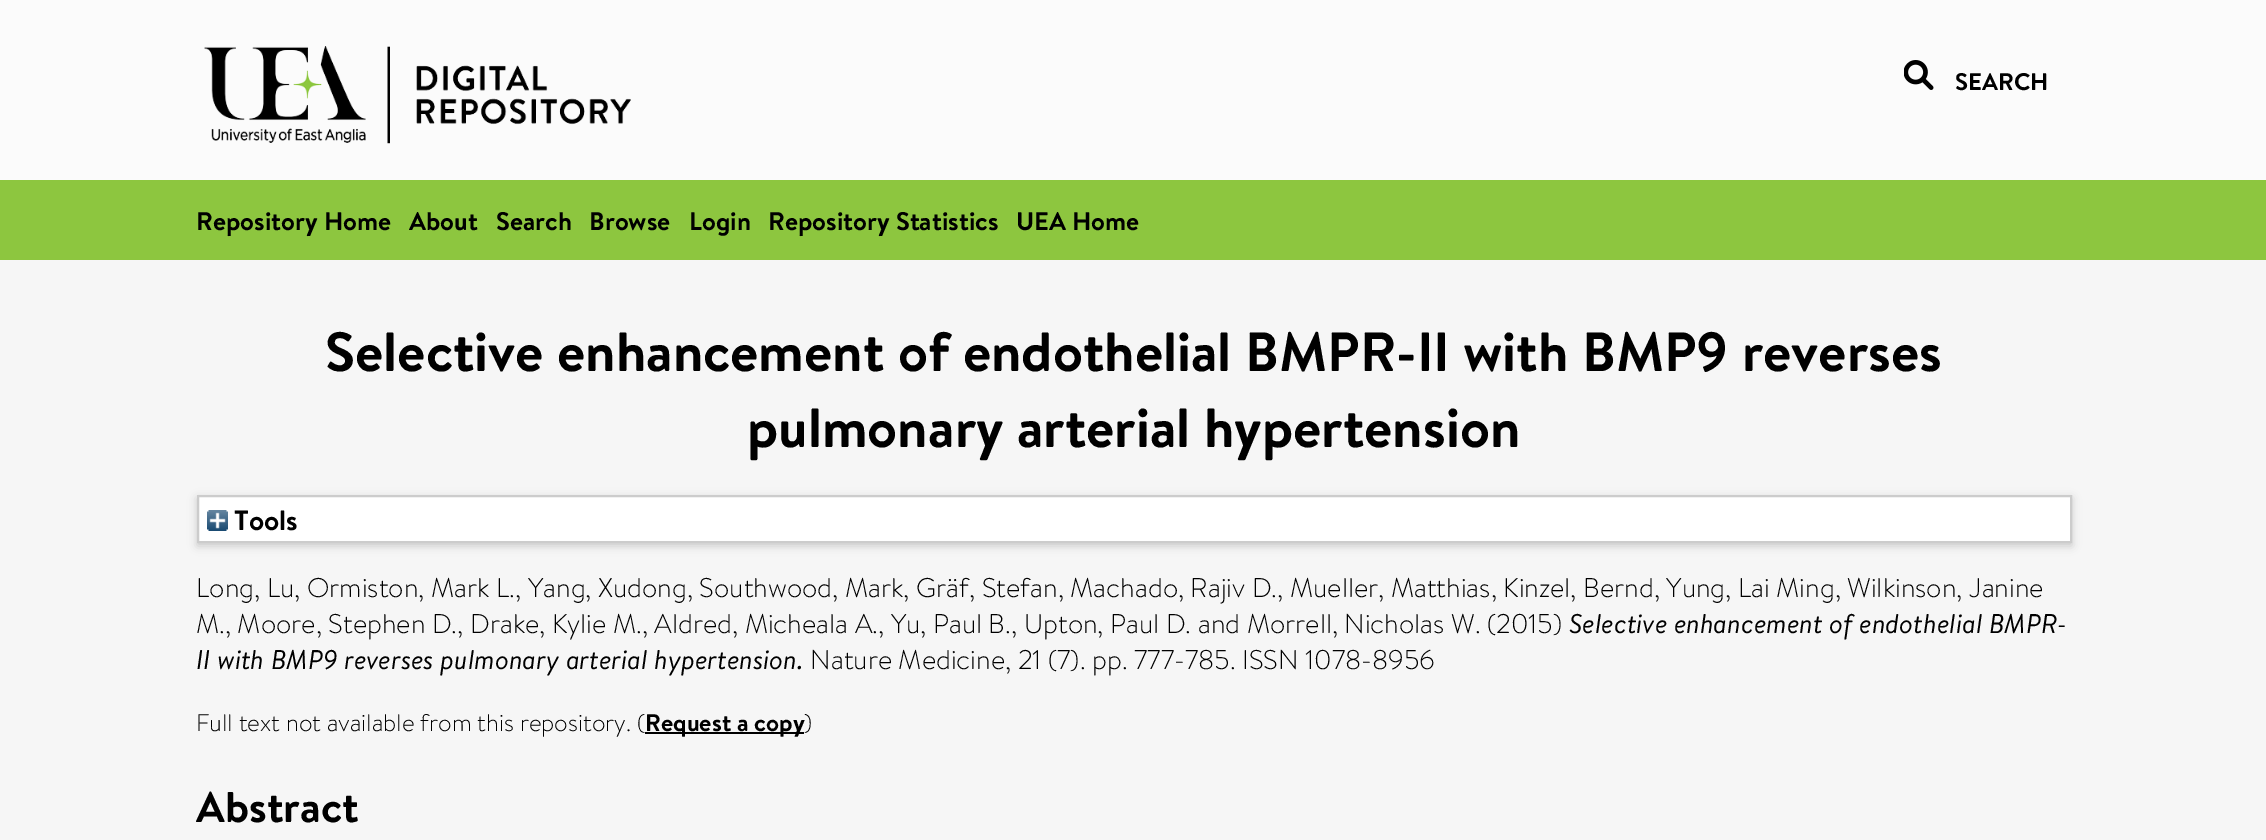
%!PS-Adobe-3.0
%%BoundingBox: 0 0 2266 840
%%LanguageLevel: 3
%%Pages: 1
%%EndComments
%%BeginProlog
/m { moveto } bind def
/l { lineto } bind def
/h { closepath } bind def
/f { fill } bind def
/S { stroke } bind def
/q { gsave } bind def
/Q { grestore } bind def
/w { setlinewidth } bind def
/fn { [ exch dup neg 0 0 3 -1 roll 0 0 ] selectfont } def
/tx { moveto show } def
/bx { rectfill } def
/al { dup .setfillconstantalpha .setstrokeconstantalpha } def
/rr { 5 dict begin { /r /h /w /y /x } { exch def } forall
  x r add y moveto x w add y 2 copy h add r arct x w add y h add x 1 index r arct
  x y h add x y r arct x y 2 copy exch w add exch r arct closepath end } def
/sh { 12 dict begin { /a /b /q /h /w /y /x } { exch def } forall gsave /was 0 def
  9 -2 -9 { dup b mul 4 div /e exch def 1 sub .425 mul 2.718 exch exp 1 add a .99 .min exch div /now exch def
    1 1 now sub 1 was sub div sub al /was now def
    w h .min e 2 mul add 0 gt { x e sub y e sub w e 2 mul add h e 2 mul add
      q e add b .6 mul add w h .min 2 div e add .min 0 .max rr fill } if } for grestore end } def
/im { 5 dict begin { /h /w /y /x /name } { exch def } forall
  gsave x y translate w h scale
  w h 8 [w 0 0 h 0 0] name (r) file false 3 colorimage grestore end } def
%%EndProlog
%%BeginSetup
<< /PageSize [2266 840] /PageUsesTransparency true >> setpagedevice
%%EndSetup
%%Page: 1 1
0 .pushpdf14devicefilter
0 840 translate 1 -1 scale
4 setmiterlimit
0.965 setgray
0 0 2266 840 bx
0.984 setgray
0 0 2266 180 bx
(image0.raw) 204 46 427 98 im
(image1.raw) 1904 60 30 30 im
/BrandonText-Bold 24 fn
0 setgray
(SEARCH) 1955 90 tx
0.553 0.776 0.247 setrgbcolor
0 180 2266 80 bx
/BrandonText-Bold 25.5 fn
0 setgray
(Repository Home) 196 230 tx
(About) 409 230 tx
(Search) 496 230 tx
(Browse) 589 230 tx
(Login) 689 230 tx
(Repository Statistics) 768 230 tx
(UEA Home) 1016 230 tx
/BrandonText-Bold 55.2 fn
(Selective enhancement of endothelial BMPR-II with BMP9 reverses) 325 371 tx
(pulmonary arterial hypertension) 747 447 tx
0.392 setgray
197 498 1875 48 0 4.5 0.3 sh
1 setgray
198 496 m 2071 496 l 2071 542 l 198 542 l h q f Q
0.8 setgray
2 w
S
(image2.raw) 207 510 21 21 im
/BrandonText-Bold 28 fn
0 setgray
(Tools) 234 530 tx
/BrandonText-Light 27 fn
(Long, Lu, Ormiston, Mark L., Yang, Xudong, Southwood, Mark, Gräf, Stefan, Machado, Rajiv D., Mueller, Matthias, Kinzel, Bernd, Yung, Lai Ming, Wilkinson, Janine) 196 597 tx
(M., Moore, Stephen D., Drake, Kylie M., Aldred, Micheala A., Yu, Paul B., Upton, Paul D. and Morrell, Nicholas W. \(2015\)) 196 633 tx
/BrandonText-Italic 27 fn
(Selective enhancement of endothelial BMPR-) 1569 633 tx
(II with BMP9 reverses pulmonary arterial hypertension.) 196 669 tx
/BrandonText-Light 27 fn
(Nature Medicine, 21 \(7\). pp. 777-785. ISSN 1078-8956) 810 669 tx
/BrandonText-Light 24 fn
(Full text not available from this repository. \() 196 731 tx
645 732 159 2 bx
/BrandonText-Bold 24 fn
(Request a copy) 645 731 tx
/BrandonText-Light 24 fn
(\)) 804 731 tx
/BrandonText-Bold 43 fn
(Abstract) 196 822 tx
.poppdf14devicefilter showpage
%%EOF
